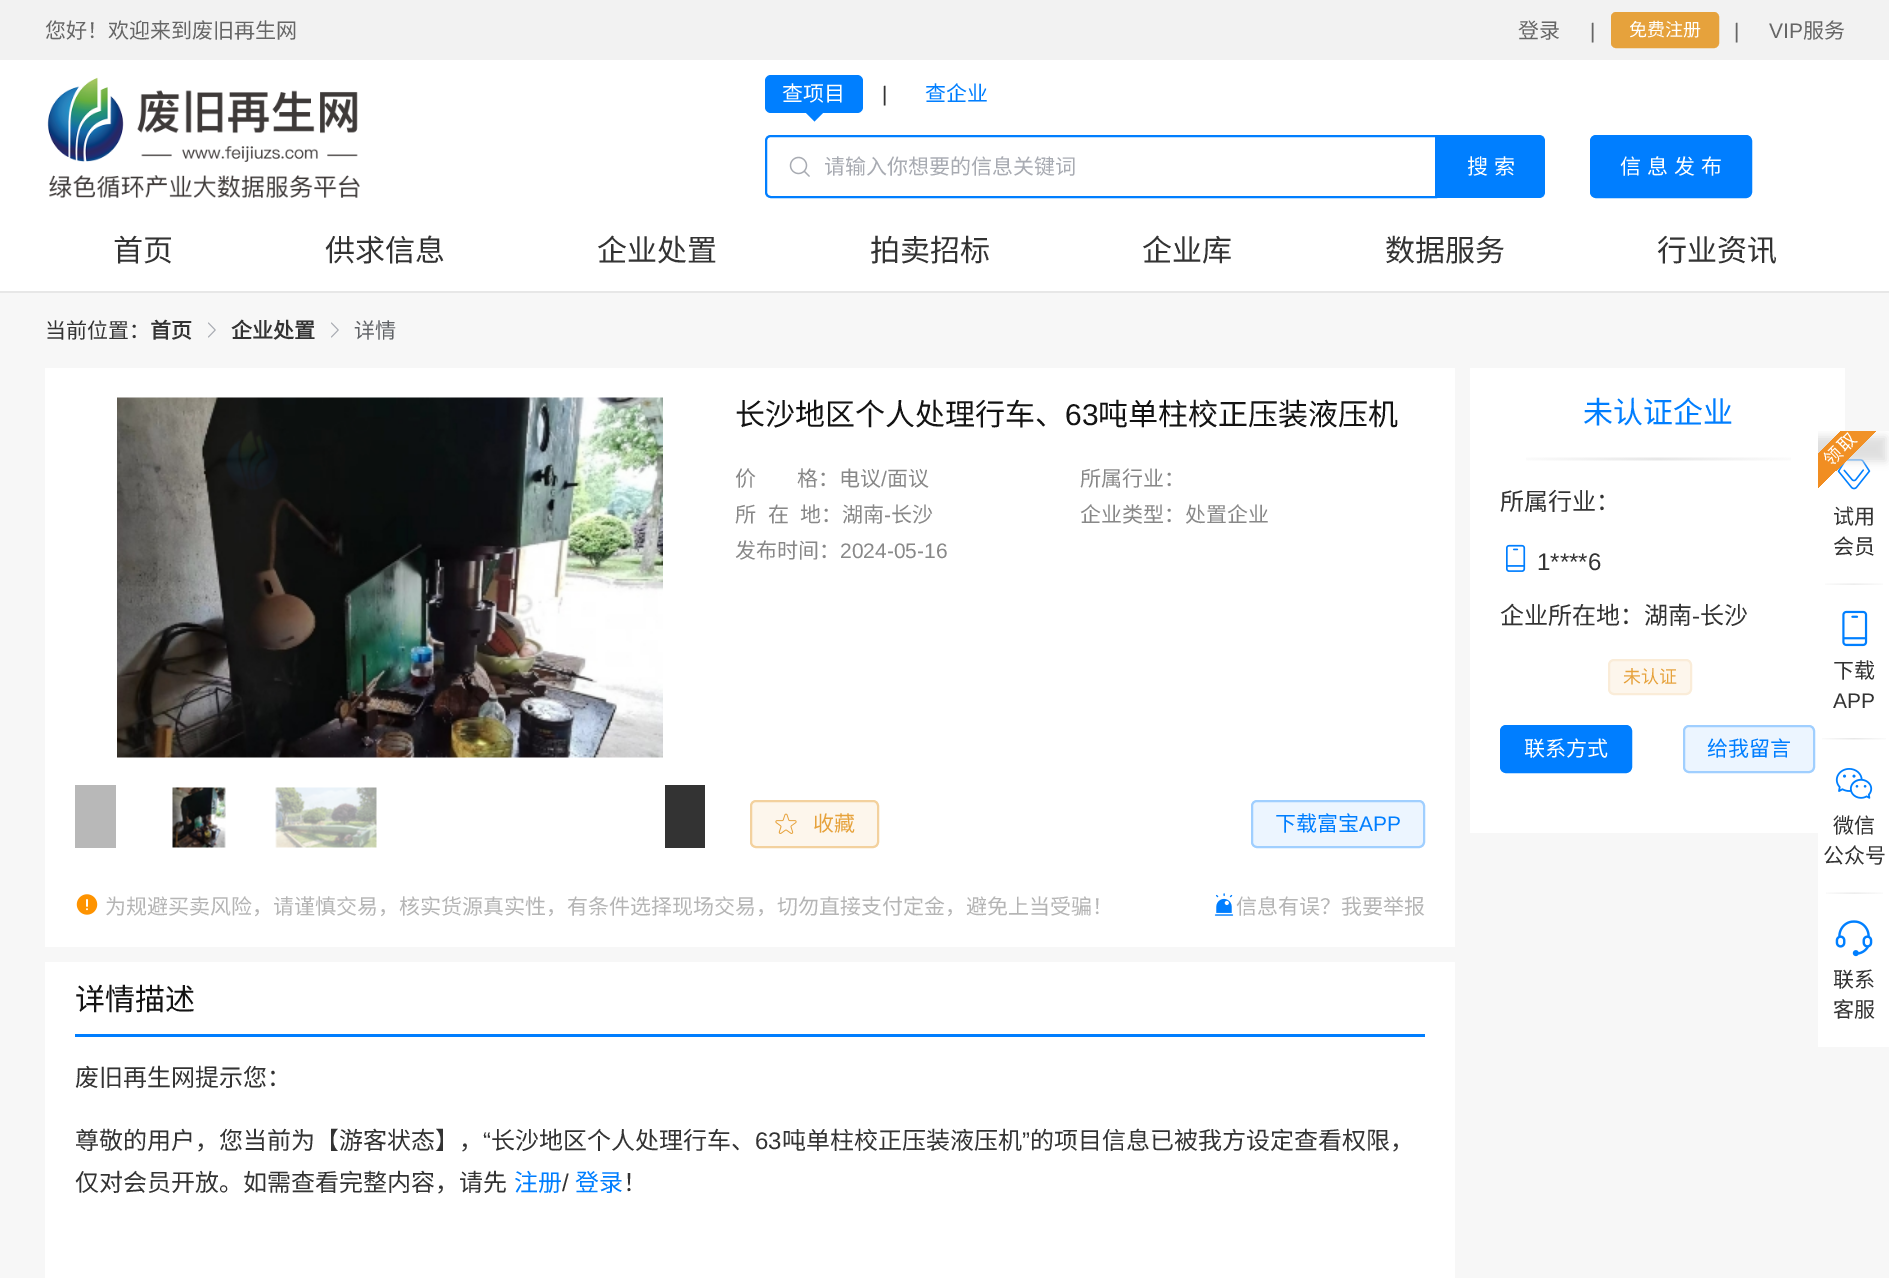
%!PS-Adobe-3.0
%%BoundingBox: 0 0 1889 1278
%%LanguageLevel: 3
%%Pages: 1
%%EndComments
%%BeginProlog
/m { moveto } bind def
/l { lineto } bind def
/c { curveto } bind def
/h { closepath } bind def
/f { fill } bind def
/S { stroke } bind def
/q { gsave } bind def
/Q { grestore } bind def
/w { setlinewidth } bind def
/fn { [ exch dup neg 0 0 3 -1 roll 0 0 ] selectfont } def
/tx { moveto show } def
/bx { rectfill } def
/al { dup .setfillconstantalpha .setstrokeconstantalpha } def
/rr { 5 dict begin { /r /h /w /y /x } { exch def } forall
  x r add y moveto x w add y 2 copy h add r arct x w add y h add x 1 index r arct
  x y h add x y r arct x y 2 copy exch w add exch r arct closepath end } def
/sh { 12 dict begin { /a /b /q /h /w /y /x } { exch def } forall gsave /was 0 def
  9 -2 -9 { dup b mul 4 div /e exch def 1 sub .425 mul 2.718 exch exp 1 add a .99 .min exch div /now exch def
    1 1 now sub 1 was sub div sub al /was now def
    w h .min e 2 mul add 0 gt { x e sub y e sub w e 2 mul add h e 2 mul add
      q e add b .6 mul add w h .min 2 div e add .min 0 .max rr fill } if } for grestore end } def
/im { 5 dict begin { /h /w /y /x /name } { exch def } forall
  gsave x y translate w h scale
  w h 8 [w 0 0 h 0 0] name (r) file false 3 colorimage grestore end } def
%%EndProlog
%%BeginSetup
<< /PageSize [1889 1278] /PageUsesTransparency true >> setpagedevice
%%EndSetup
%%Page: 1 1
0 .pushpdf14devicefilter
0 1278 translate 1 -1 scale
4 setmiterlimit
0.969 setgray
0 0 1889 1278 bx
0.949 setgray
0 0 1889 60 bx
/NotoSansCJKSC-Regular 21 fn
0.4 setgray
(您好！欢迎来到废旧再生网) 45 38 tx
(登录) 1518 38 tx
/LiberationSans-Regular 21 fn
(|) 1590 38 tx
0.902 0.635 0.235 setrgbcolor
1612 13 106 34 4 rr q f Q
2 w
S
/NotoSansCJKSC-Regular 18 fn
1 setgray
(免费注册) 1629 36 tx
/LiberationSans-Regular 21 fn
0.4 setgray
(|) 1734 38 tx
(VIP) 1769 38 tx
/NotoSansCJKSC-Regular 21 fn
(服务) 1803 38 tx
1 setgray
0 60 1889 231 bx
0.906 setgray
0 291 1889 2 bx
(image0.raw) 47 77 313 121 im
0 0.498 1 setrgbcolor
765 75 98 38 6 rr f
1 setgray
(查项目) 782 101 tx
0 0.498 1 setrgbcolor
805.5 112.5 m 823.5 112.5 l 814.5 121.5 l h f
/LiberationSans-Regular 21 fn
0.2 setgray
(|) 882 101 tx
/NotoSansCJKSC-Regular 21 fn
0 0.494 1 setrgbcolor
(查企业) 925 101 tx
771 136 m 1436 136 l 1436 197 l 771 197 l 768 197 766 195 766 192 c 766 141 l 766 138 768 136 771 136 c h S
(image1.raw) 789 156 21 21 im
0.659 0.671 0.698 setrgbcolor
(请输入你想要的信息关键词) 824 174 tx
0 0.498 1 setrgbcolor
1437 135 m 1539 135 l 1542.5 135 1545 137.5 1545 141 c 1545 192 l 1545 195.5 1542.5 198 1539 198 c 1437 198 l h f
1 setgray
(搜) 1467 174 tx
(索) 1494 174 tx
0 0.494 1 setrgbcolor
1591 136 160 61 5 rr q f Q
S
1 setgray
(信) 1620 174 tx
(息) 1647 174 tx
(发) 1674 174 tx
(布) 1701 174 tx
/NotoSansCJKSC-Regular 30 fn
0.2 setgray
(首页) 113 261 tx
(供求信息) 325 261 tx
(企业处置) 597 261 tx
(拍卖招标) 870 261 tx
(企业库) 1142 261 tx
(数据服务) 1385 261 tx
(行业资讯) 1657 261 tx
/NotoSansCJKSC-Regular 21 fn
(当前位置：) 45 338 tx
/NotoSansCJKSC-Bold 21 fn
(首页) 150 338 tx
(image2.raw) 208 322 8 16 im
(企业处置) 231 338 tx
(image2.raw) 331 322 8 16 im
/NotoSansCJKSC-Regular 21 fn
0.376 0.384 0.4 setrgbcolor
(详情) 354 338 tx
1 setgray
45 368 1410 579 bx
(image3.raw) 117 397 546 361 im
0.722 setgray
75 785 41 63 bx
0.2 setgray
665 785 40 63 bx
(image4.raw) 172 787 54 61 im
(image5.raw) 275 787 102 61 im
/NotoSansCJKSC-Regular 30 fn
0.075 setgray
(长沙地区个人处理行车、) 735 425 tx
/LiberationSans-Regular 30 fn
(63) 1065 425 tx
/NotoSansCJKSC-Regular 30 fn
(吨单柱校正压装液压机) 1098 425 tx
/NotoSansCJKSC-Regular 21 fn
0.533 setgray
(价) 735 486 tx
(格：电议) 797 486 tx
/LiberationSans-Regular 21 fn
(/) 881 486 tx
/NotoSansCJKSC-Regular 21 fn
(面议) 887 486 tx
(所属行业：) 1080 486 tx
(所) 735 522 tx
(在) 768 522 tx
(地：湖南) 800 522 tx
/LiberationSans-Regular 21 fn
(-) 884 522 tx
/NotoSansCJKSC-Regular 21 fn
(长沙) 891 522 tx
(企业类型：处置企业) 1080 522 tx
(发布时间：) 735 558 tx
/LiberationSans-Regular 21 fn
(2024-05-16) 840 558 tx
0.992 0.965 0.925 setrgbcolor
751 801 127 46 5 rr q f Q
0.953 0.82 0.62 setrgbcolor
S
(image6.raw) 775 813 22 21 im
/NotoSansCJKSC-Regular 21 fn
0.902 0.635 0.235 setrgbcolor
(收藏) 813 831 tx
0.925 0.961 1 setrgbcolor
1252 801 172 46 5 rr q f Q
0.627 0.812 1 setrgbcolor
S
0 0.494 1 setrgbcolor
(下载富宝) 1275 831 tx
/LiberationSans-Regular 21 fn
(APP) 1359 831 tx
(image7.raw) 76 894 22 21 im
/NotoSansCJKSC-Regular 21 fn
0.71 setgray
(为规避买卖风险，请谨慎交易，核实货源真实性，有条件选择现场交易，切勿直接支付定金，避免上当受骗！) 105 914 tx
(image8.raw) 1214 893 20 23 im
(信息有误？我要举报) 1236 914 tx
1 setgray
1470 368 375 465 bx
(image9.raw) 1526 457 265 4 im
/NotoSansCJKSC-Regular 30 fn
0 0.494 1 setrgbcolor
(未认证企业) 1583 423 tx
/NotoSansCJKSC-Regular 24 fn
0.2 setgray
(所属行业：) 1500 510 tx
(image10.raw) 1506 544 20 28 im
/LiberationSans-Regular 24 fn
(1****6) 1537 570 tx
/NotoSansCJKSC-Regular 24 fn
(企业所在地：湖南) 1500 624 tx
/LiberationSans-Regular 24 fn
(-) 1692 624 tx
/NotoSansCJKSC-Regular 24 fn
(长沙) 1700 624 tx
0.992 0.965 0.925 setrgbcolor
1609 660 82 34 5 rr q f Q
0.98 0.925 0.847 setrgbcolor
S
/NotoSansCJKSC-Regular 18 fn
0.902 0.635 0.235 setrgbcolor
(未认证) 1623 683 tx
0 0.494 1 setrgbcolor
1501 726 130 46 5 rr q f Q
S
/NotoSansCJKSC-Regular 21 fn
1 setgray
(联系方式) 1524 756 tx
0.925 0.961 1 setrgbcolor
1684 726 130 46 5 rr q f Q
0.627 0.812 1 setrgbcolor
S
0 0.494 1 setrgbcolor
(给我留言) 1707 756 tx
1 setgray
45 962 1410 316 bx
0 0.494 1 setrgbcolor
75 1034 1350 3 bx
/NotoSansCJKSC-Regular 30 fn
0.075 setgray
(详情描述) 75 1010 tx
/NotoSansCJKSC-Regular 24 fn
0.2 setgray
(废旧再生网提示您：) 75 1086 tx
(尊敬的用户，您当前为【游客状态】，) 75 1149 tx
/LiberationSans-Regular 24 fn
(“) 483 1149 tx
/NotoSansCJKSC-Regular 24 fn
(长沙地区个人处理行车、) 491 1149 tx
/LiberationSans-Regular 24 fn
(63) 755 1149 tx
/NotoSansCJKSC-Regular 24 fn
(吨单柱校正压装液压机) 782 1149 tx
/LiberationSans-Regular 24 fn
(”) 1022 1149 tx
/NotoSansCJKSC-Regular 24 fn
(的项目信息已被我方设定查看权限，) 1030 1149 tx
(仅对会员开放。如需查看完整内容，请先) 75 1191 tx
0 0.494 1 setrgbcolor
(注册) 514 1191 tx
/LiberationSans-Regular 24 fn
0.2 setgray
(/) 562 1191 tx
/NotoSansCJKSC-Regular 24 fn
0 0.494 1 setrgbcolor
(登录) 575 1191 tx
0.2 setgray
(！) 623 1191 tx
1 setgray
1845 431 44 309 bx
(image11.raw) 1825 583 58 2 im
(image12.raw) 1837 458 34 32 im
q
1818 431 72 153 rectclip
0.867 setgray
1796 437 90 24 0 4.5 1 sh
Q
q
1818 431 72 153 rectclip
q 1800 472 m 1864 408 l 1881 425 l 1817 489 l h clip newpath
<< /ShadingType 2 /ColorSpace /DeviceRGB /Coords [1809 480 1872 417] /Extend [true true] /Function << /FunctionType 2 /Domain [0 1] /C0 [0.949 0.553 0.125] /C1 [0.945 0.58 0.165] /N 1 >> >> shfill Q
Q
/NotoSansCJKSC-Regular 18 fn
q 1831 467 translate -45 rotate 0 0 m 2 0 (领取) ashow Q
/NotoSansCJKSC-Regular 21 fn
0.2 setgray
(试用) 1833 524 tx
(会员) 1833 554 tx
(image13.raw) 1822 738 64 2 im
(image14.raw) 1842 610 26 37 im
(下载) 1833 678 tx
/LiberationSans-Regular 21 fn
(APP) 1833 708 tx
1 setgray
1818 740 71 307 bx
(image15.raw) 1826 892 57 2 im
(image16.raw) 1835 768 38 31 im
/NotoSansCJKSC-Regular 21 fn
0.2 setgray
(微信) 1833 833 tx
(公众号) 1823 863 tx
(image17.raw) 1835 920 38 37 im
(联系) 1833 987 tx
(客服) 1833 1017 tx
.poppdf14devicefilter showpage
%%EOF
